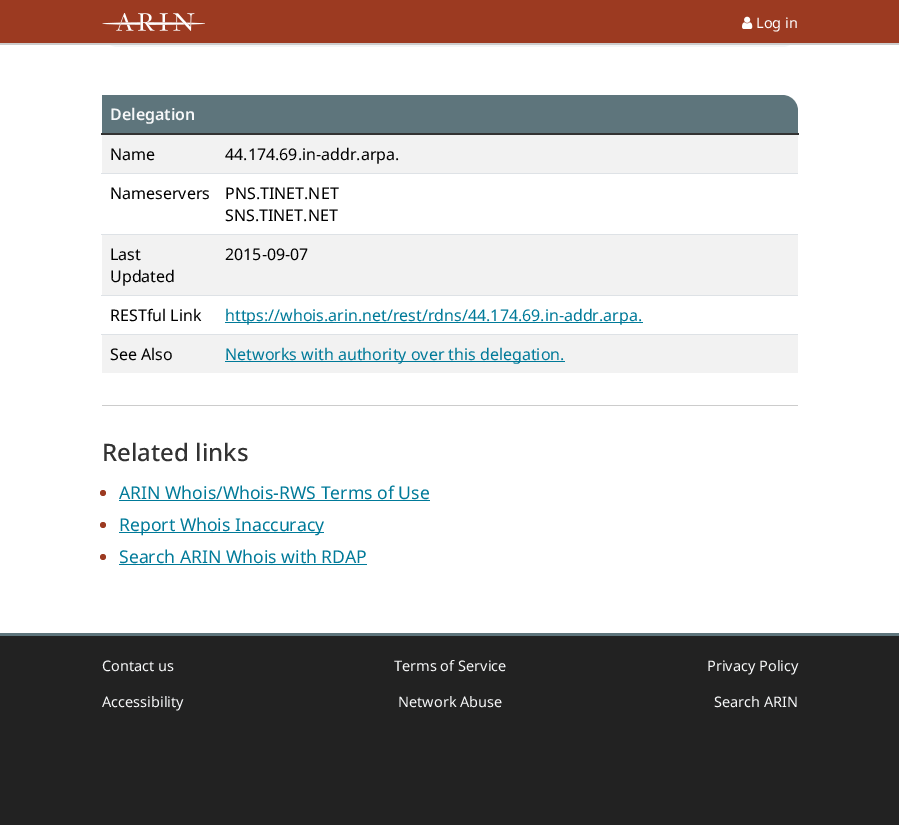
%!PS-Adobe-3.0
%%BoundingBox: 0 0 899 825
%%LanguageLevel: 3
%%Pages: 1
%%EndComments
%%BeginProlog
/m { moveto } bind def
/l { lineto } bind def
/c { curveto } bind def
/h { closepath } bind def
/f { fill } bind def
/fn { [ exch dup neg 0 0 3 -1 roll 0 0 ] selectfont } def
/tx { moveto show } def
/bx { rectfill } def
/ci { newpath 0 360 arc closepath } def
/rr { 5 dict begin { /r /h /w /y /x } { exch def } forall
  x r add y moveto x w add y 2 copy h add r arct x w add y h add x 1 index r arct
  x y h add x y r arct x y 2 copy exch w add exch r arct closepath end } def
/im { 5 dict begin { /h /w /y /x /name } { exch def } forall
  gsave x y translate w h scale
  w h 8 [w 0 0 h 0 0] name (r) file false 3 colorimage grestore end } def
%%EndProlog
%%BeginSetup
<< /PageSize [899 825] >> setpagedevice
%%EndSetup
%%Page: 1 1
0 825 translate 1 -1 scale
4 setmiterlimit
1 setgray
0 0 899 825 bx
0.957 0.965 0.969 setrgbcolor
102 -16 696 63 16 rr f
0.612 0.227 0.129 setrgbcolor
0 0 899 43 bx
0.8 setgray
0 43 899 2 bx
(image0.raw) 102 13 103 18 im
(image1.raw) 742 16 11 13 im
/NotoSans-Regular 14.5 fn
1 setgray
(Log in) 756 28 tx
0.369 0.459 0.486 setrgbcolor
102 95 m 782 95 l 791 95 798 102 798 111 c 798 133 l 102 133 l h f
/NotoSans-SemiBold 16 fn
0.969 0.973 0.976 setrgbcolor
(Delegation) 110 120 tx
0.2 setgray
101 133 698 2 bx
0.949 setgray
102 135 696 38 bx
/NotoSans-Regular 16 fn
0 setgray
(Name) 110 160 tx
0.871 0.886 0.902 setrgbcolor
101 173 697 1 bx
0 setgray
(44.174.69.in-addr.arpa.) 225 160 tx
(Nameservers) 110 199 tx
0.871 0.886 0.902 setrgbcolor
101 234 697 1 bx
0 setgray
(PNS.TINET.NET) 225 199 tx
(SNS.TINET.NET) 225 221 tx
0.949 setgray
102 235 696 60 bx
0 setgray
(Last) 110 260 tx
(Updated) 110 282 tx
0.871 0.886 0.902 setrgbcolor
101 295 697 1 bx
0 setgray
(2015-09-07) 225 260 tx
(RESTful Link) 110 321 tx
0.871 0.886 0.902 setrgbcolor
101 334 697 1 bx
0 0.478 0.6 setrgbcolor
225 322 418 1 bx
(https://whois.arin.net/rest/rdns/44.174.69.in-addr.arpa.) 225 321 tx
0.949 setgray
102 335 696 38 bx
0 setgray
(See Also) 110 360 tx
0 0.478 0.6 setrgbcolor
225 361 340 1 bx
(Networks with authority over this delegation.) 225 360 tx
0.8 setgray
102 405 696 1 bx
/NotoSans-Medium 24 fn
0.2 setgray
(Related links) 102 461 tx
0.612 0.227 0.129 setrgbcolor
103 493 3 ci f
/NotoSans-Regular 17.6 fn
0 0.478 0.6 setrgbcolor
(ARIN Whois/Whois-RWS Terms of Use) 119 499 tx
119 500 311 1 bx
0.612 0.227 0.129 setrgbcolor
103 525 3 ci f
0 0.478 0.6 setrgbcolor
119 532 205 1 bx
(Report Whois Inaccuracy) 119 531 tx
0.612 0.227 0.129 setrgbcolor
103 557 3 ci f
0 0.478 0.6 setrgbcolor
(Search ARIN Whois with RDAP) 119 563 tx
119 564 248 1 bx
0.133 setgray
0 636 899 189 bx
0.369 0.459 0.486 setrgbcolor
0 633 899 3 bx
/NotoSans-Regular 14.5 fn
0.969 0.973 0.976 setrgbcolor
(Contact us) 102 671 tx
(Terms of Service) 394 671 tx
(Privacy Policy) 707 671 tx
(Accessibility) 102 707 tx
(Network Abuse) 398 707 tx
(Search ARIN) 714 707 tx
showpage
%%EOF
